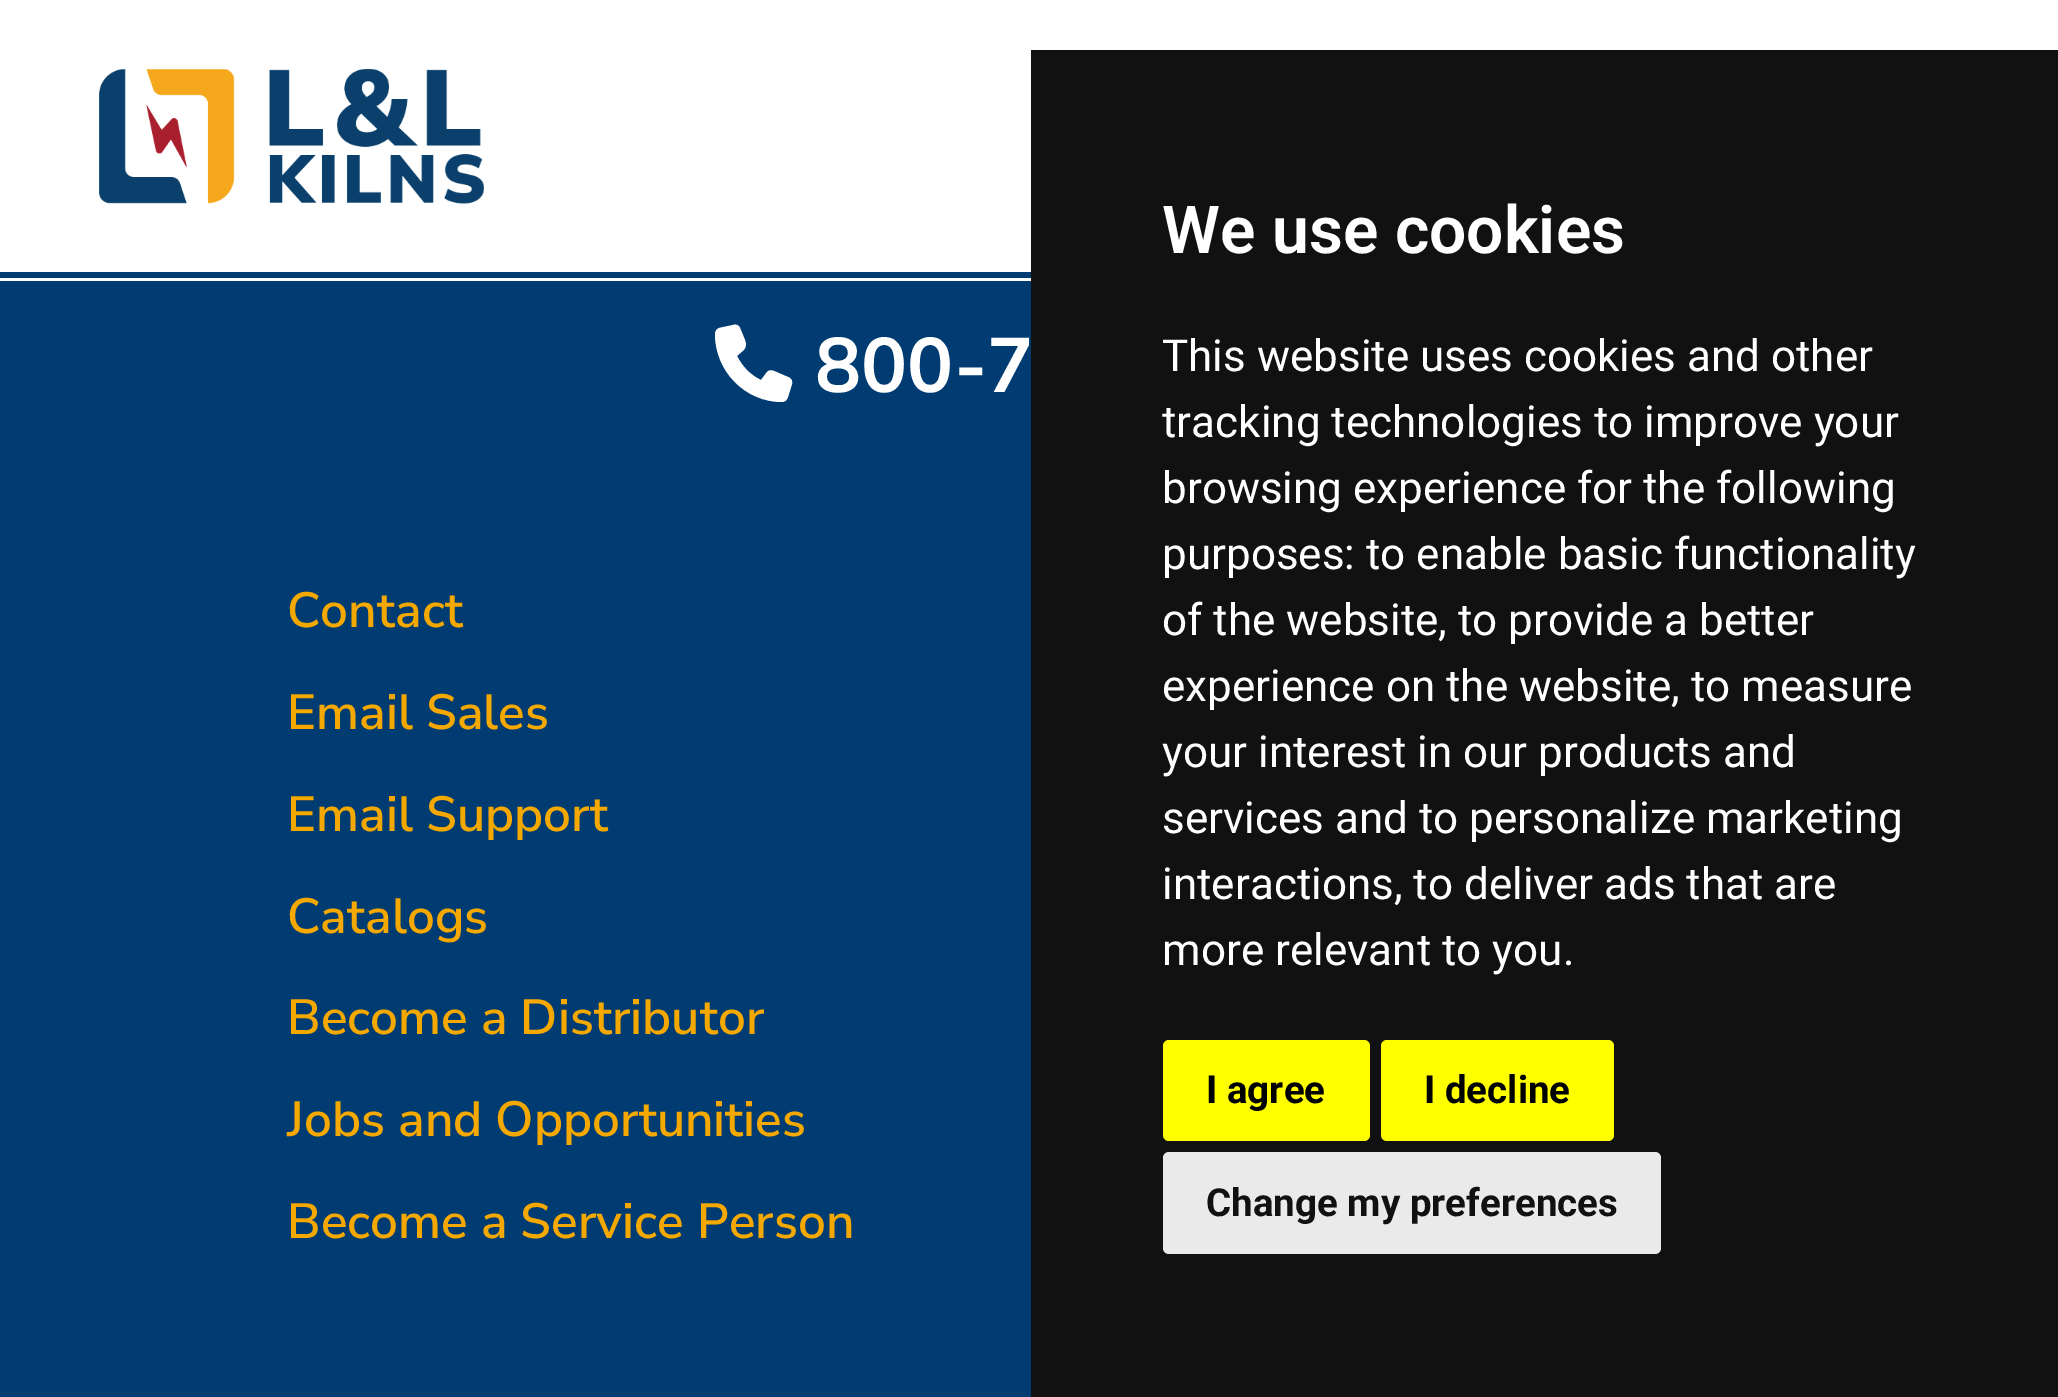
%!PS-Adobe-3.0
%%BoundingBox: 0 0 2058 1397
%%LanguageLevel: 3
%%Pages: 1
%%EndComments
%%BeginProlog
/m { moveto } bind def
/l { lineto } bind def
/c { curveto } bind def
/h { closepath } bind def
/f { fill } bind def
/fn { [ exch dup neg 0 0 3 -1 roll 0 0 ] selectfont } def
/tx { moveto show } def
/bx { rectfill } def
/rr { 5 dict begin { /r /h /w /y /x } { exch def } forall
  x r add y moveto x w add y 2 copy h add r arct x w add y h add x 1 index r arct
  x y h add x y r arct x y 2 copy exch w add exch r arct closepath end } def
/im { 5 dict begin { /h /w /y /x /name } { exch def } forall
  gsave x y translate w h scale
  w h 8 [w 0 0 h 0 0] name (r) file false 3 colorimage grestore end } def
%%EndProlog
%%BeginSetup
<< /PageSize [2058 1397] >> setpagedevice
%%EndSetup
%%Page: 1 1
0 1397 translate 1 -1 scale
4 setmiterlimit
0 0.231 0.443 setrgbcolor
0 0 2058 1397 bx
1 setgray
0 0 2058 272 bx
(image0.raw) 99 69 385 135 im
0 278 1031 3 bx
740 328 m 739 325 736 324 733 325 c 719 328 l 717 329 715 331 715 334 c 715 371 745 402 782 402 c 785 402 787 400 788 397 c 792 384 l 793 381 791 378 788 377 c 774 371 l 771 370 769 370 767 372 c 761 380 l 750 375 742 366 737 356 c 743 350 748 349 745 340 c h f
/NunitoSans-Bold 77 fn
(800-7) 815 392 tx
/NunitoSans-SemiBold 49.5 fn
0.961 0.659 0 setrgbcolor
(Contact) 287 627 tx
(Email Sales) 287 729 tx
(Email Support) 287 831 tx
(Catalogs) 287 933 tx
(Become a Distributor) 287 1034 tx
(Jobs and Opportunities) 287 1136 tx
(Become a Service Person) 287 1238 tx
0.067 setgray
1031 50 1027 1347 bx
/Roboto-SemiBold 66 fn
1 setgray
(We use cookies) 1162 253 tx
/Roboto-Regular 44 fn
(This website uses cookies and other) 1162 371 tx
(tracking technologies to improve your) 1162 437 tx
(browsing experience for the following) 1162 503 tx
(purposes: to enable basic functionality) 1162 569 tx
(of the website, to provide a better) 1162 635 tx
(experience on the website, to measure) 1162 701 tx
(your interest in our products and) 1162 767 tx
(services and to personalize marketing) 1162 833 tx
(interactions, to deliver ads that are) 1162 899 tx
(more relevant to you.) 1162 965 tx
1 1 0 setrgbcolor
1163 1040 207 101 6 rr f
/Roboto-Bold 38.5 fn
0 setgray
(I agree) 1206 1103 tx
1 1 0 setrgbcolor
1381 1040 233 101 6 rr f
0 setgray
(I decline) 1424 1103 tx
0.918 setgray
1163 1152 498 102 6 rr f
0.067 setgray
(Change my preferences) 1206 1216 tx
showpage
%%EOF
